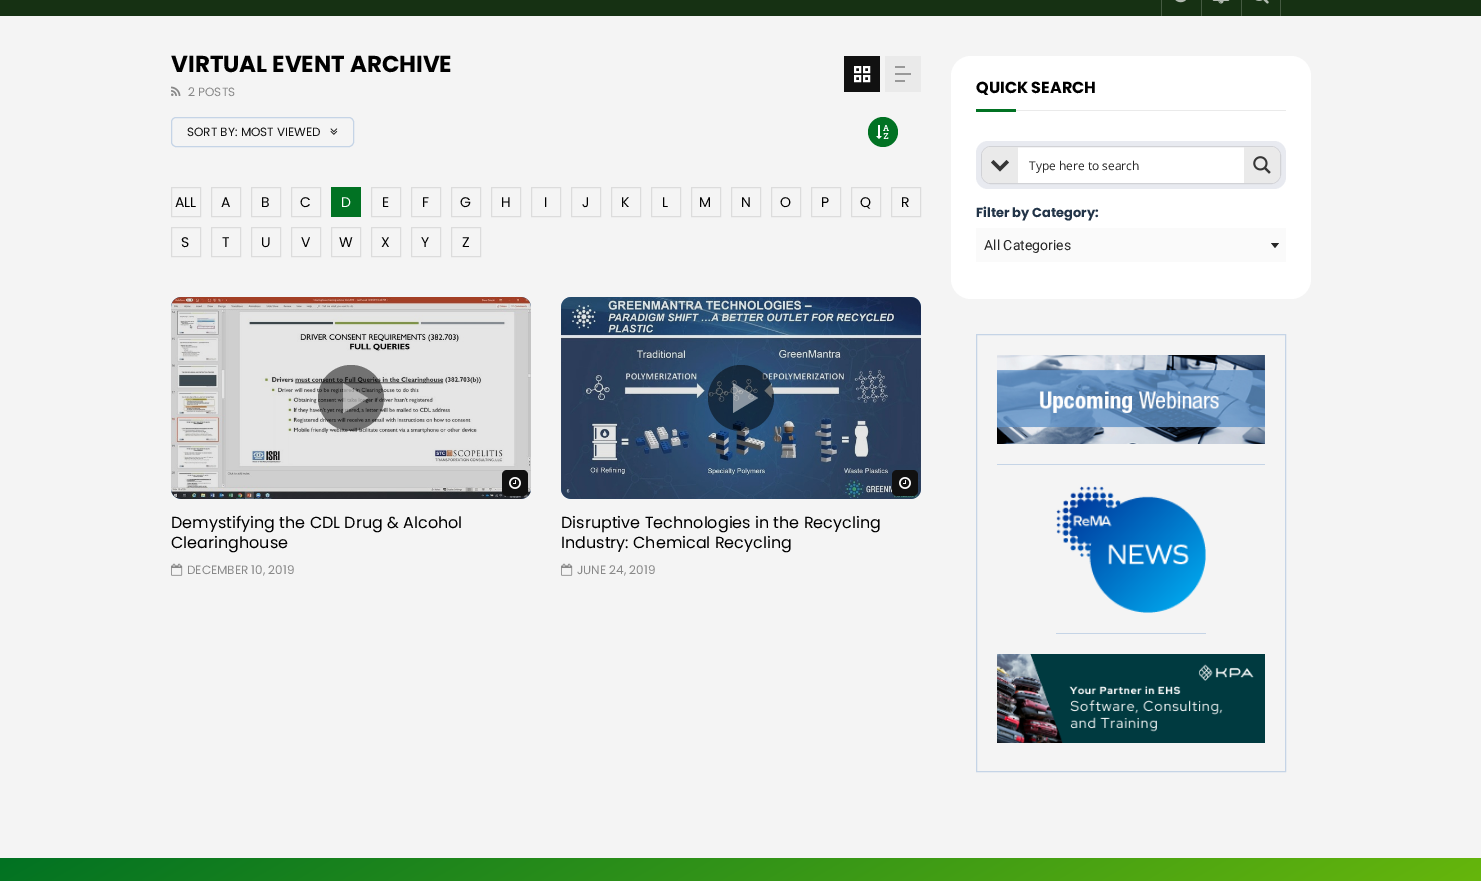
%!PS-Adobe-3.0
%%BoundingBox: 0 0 1481 881
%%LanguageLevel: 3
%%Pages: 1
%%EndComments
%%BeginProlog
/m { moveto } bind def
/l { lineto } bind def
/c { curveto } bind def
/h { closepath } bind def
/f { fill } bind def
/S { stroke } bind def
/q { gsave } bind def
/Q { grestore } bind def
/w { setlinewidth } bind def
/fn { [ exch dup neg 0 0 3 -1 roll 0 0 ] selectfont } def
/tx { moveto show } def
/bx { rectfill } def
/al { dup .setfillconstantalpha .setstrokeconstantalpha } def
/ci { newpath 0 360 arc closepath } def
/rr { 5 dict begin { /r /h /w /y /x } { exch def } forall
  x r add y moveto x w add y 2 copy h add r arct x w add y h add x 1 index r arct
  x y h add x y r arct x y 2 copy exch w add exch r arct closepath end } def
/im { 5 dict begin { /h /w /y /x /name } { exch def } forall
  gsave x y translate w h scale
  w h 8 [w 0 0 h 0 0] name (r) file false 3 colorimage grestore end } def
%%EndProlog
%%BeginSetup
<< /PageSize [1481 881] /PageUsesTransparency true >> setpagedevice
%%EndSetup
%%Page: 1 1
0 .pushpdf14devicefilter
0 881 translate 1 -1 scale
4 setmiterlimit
0.957 setgray
0 0 1481 881 bx
0.086 0.192 0.075 setrgbcolor
0 0 1481 16 bx
0.271 0.353 0.259 setrgbcolor
1161 0 1 16 bx
(image0.raw) 1175 0 11 3 im
1201 0 1 16 bx
(image1.raw) 1212 0 18 4 im
1280 0 1 16 bx
1241 0 1 16 bx
(image2.raw) 1255 0 14 4 im
/Poppins-Bold 23 fn
0 setgray
(VIRTUAL EVENT ARCHIVE) 171 72 tx
(image3.raw) 171 86 10 10 im
/Poppins-Regular 12 fn
0.533 setgray
(2 POSTS) 188 96 tx
0.773 0.831 0.902 setrgbcolor
171.5 117.5 182 29 4.5 rr S
0.067 setgray
(SORT BY: MOST VIEWED) 187 136 tx
(image4.raw) 330 128 8 7 im
844 56 36 36 bx
1 setgray
2 w
855 67 5 5 rectstroke
864 67 5 5 rectstroke
855 76 5 5 rectstroke
864 76 5 5 rectstroke
0.918 setgray
885 56 36 36 bx
0.6 setgray
895 66 10 2 bx
895 73 16 2 bx
895 80 10 2 bx
0.004 0.447 0.137 setrgbcolor
883 132 15 ci f
(image5.raw) 876 125 13 14 im
0.863 setgray
1 w
171.5 187.5 29 29 rectstroke
/Poppins-Regular 14 fn
0 setgray
(ALL) 175 207 tx
0.863 setgray
211.5 187.5 29 29 rectstroke
0 setgray
(A) 221 207 tx
0.863 setgray
251.5 187.5 29 29 rectstroke
0 setgray
(B) 261 207 tx
0.863 setgray
291.5 187.5 29 29 rectstroke
0 setgray
(C) 300 207 tx
0.004 0.447 0.137 setrgbcolor
331 187 30 30 bx
1 setgray
(D) 341 207 tx
0.863 setgray
371.5 187.5 29 29 rectstroke
0 setgray
(E) 382 207 tx
0.863 setgray
411.5 187.5 29 29 rectstroke
0 setgray
(F) 422 207 tx
0.863 setgray
451.5 187.5 29 29 rectstroke
0 setgray
(G) 460 207 tx
0.863 setgray
491.5 187.5 29 29 rectstroke
0 setgray
(H) 501 207 tx
0.863 setgray
531.5 187.5 29 29 rectstroke
0 setgray
(I) 544 207 tx
0.863 setgray
571.5 187.5 29 29 rectstroke
0 setgray
(J) 582 207 tx
0.863 setgray
611.5 187.5 29 29 rectstroke
0 setgray
(K) 621 207 tx
0.863 setgray
651.5 187.5 29 29 rectstroke
0 setgray
(L) 662 207 tx
0.863 setgray
691.5 187.5 29 29 rectstroke
0 setgray
(M) 699 207 tx
0.863 setgray
731.5 187.5 29 29 rectstroke
0 setgray
(N) 741 207 tx
0.863 setgray
771.5 187.5 29 29 rectstroke
0 setgray
(O) 780 207 tx
0.863 setgray
811.5 187.5 29 29 rectstroke
0 setgray
(P) 821 207 tx
0.863 setgray
851.5 187.5 29 29 rectstroke
0 setgray
(Q) 860 207 tx
0.863 setgray
891.5 187.5 29 29 rectstroke
0 setgray
(R) 901 207 tx
0.863 setgray
171.5 227.5 29 29 rectstroke
0 setgray
(S) 181 247 tx
0.863 setgray
211.5 227.5 29 29 rectstroke
0 setgray
(T) 222 247 tx
0.863 setgray
251.5 227.5 29 29 rectstroke
0 setgray
(U) 261 247 tx
0.863 setgray
291.5 227.5 29 29 rectstroke
0 setgray
(V) 301 247 tx
0.863 setgray
331.5 227.5 29 29 rectstroke
0 setgray
(W) 339 247 tx
0.863 setgray
371.5 227.5 29 29 rectstroke
0 setgray
(X) 381 247 tx
0.863 setgray
411.5 227.5 29 29 rectstroke
0 setgray
(Y) 421 247 tx
0.863 setgray
451.5 227.5 29 29 rectstroke
0 setgray
(Z) 462 247 tx
0.216 0.376 0.576 setrgbcolor
171 297 360 202 10 rr f
(image6.raw) 171 297 360 202 im
0.1 al
0 setgray
171 297 360 202 10 rr f
0.5 al
351 398 33 ci f
1 setgray
343 413 m 343 383 l 368 398 l h f
1 al
0.067 setgray
502 470 26 26 5 rr f
(image7.raw) 509 477 12 12 im
/Poppins-Regular 16 fn
0 setgray
(Demystifying the CDL Drug & Alcohol) 171 528 tx
(Clearinghouse) 171 548 tx
(image8.raw) 171 563 12 13 im
/Poppins-Regular 12 fn
0.533 setgray
(DECEMBER 10, 2019) 187 574 tx
0.216 0.376 0.576 setrgbcolor
561 297 360 202 10 rr f
(image9.raw) 561 297 360 202 im
0.1 al
0 setgray
561 297 360 202 10 rr f
0.5 al
741 398 33 ci f
1 setgray
733 413 m 733 383 l 758 398 l h f
1 al
0.067 setgray
892 470 26 26 5 rr f
(image7.raw) 899 477 12 12 im
/Poppins-Regular 16 fn
0 setgray
(Disruptive Technologies in the Recycling) 561 528 tx
(Industry: Chemical Recycling) 561 548 tx
(image8.raw) 561 563 12 13 im
/Poppins-Regular 12 fn
0.533 setgray
(JUNE 24, 2019) 577 574 tx
1 setgray
951 56 360 243 20 rr f
/Poppins-Bold 16 fn
0 setgray
(QUICK SEARCH) 976 93 tx
0.004 0.447 0.137 setrgbcolor
976 109 40 3 bx
0.918 setgray
1016 110 270 1 bx
0.91 0.918 0.941 setrgbcolor
976 141 310 48 12 rr f
1 setgray
981.5 146.5 299 37 9.5 rr q f Q
0.82 0.824 0.839 setrgbcolor
S
0.918 setgray
991 147 m 1018 147 l 1018 183 l 991 183 l 986 183 982 179 982 174 c 982 156 l 982 151 986 147 991 147 c h f
0.212 setgray
1006.5 160 m 1009 162.5 l 1000 171.5 l 991 162.5 l 993.5 160 l 1000 166.5 l h f
/OpenSans-Regular 12 fn
0.149 setgray
(Type here to search) 1029 170 tx
0.918 setgray
1244 147 m 1271 147 l 1276 147 1280 151 1280 156 c 1280 174 l 1280 179 1276 183 1271 183 c 1244 183 l h f
(image10.raw) 1253 156 18 18 im
/Poppins-Bold 13 fn
0.133 0.204 0.282 setrgbcolor
(Filter by Category:) 976 217 tx
0.98 setgray
976 228 310 34 bx
/Roboto-Regular 14 fn
0.149 setgray
(All Categories) 984 250 tx
0.153 setgray
1271 243 m 1279 243 l 1275 248 l h f
0.773 0.831 0.902 setrgbcolor
976.5 334.5 309 437 rectstroke
(image11.raw) 997 355 268 89 im
997 464 268 1 bx
(image12.raw) 1056 486 150 127 im
1056 633 150 1 bx
(image13.raw) 997 654 268 89 im
q 0 858 m 1481 858 l 1481 881 l 0 881 l h clip newpath
<< /ShadingType 2 /ColorSpace /DeviceRGB /Coords [456 595 1025 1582] /Extend [true true] /Function << /FunctionType 2 /Domain [0 1] /C0 [0.004 0.447 0.137] /C1 [0.596 0.847 0.004] /N 1 >> >> shfill Q
.poppdf14devicefilter showpage
%%EOF
